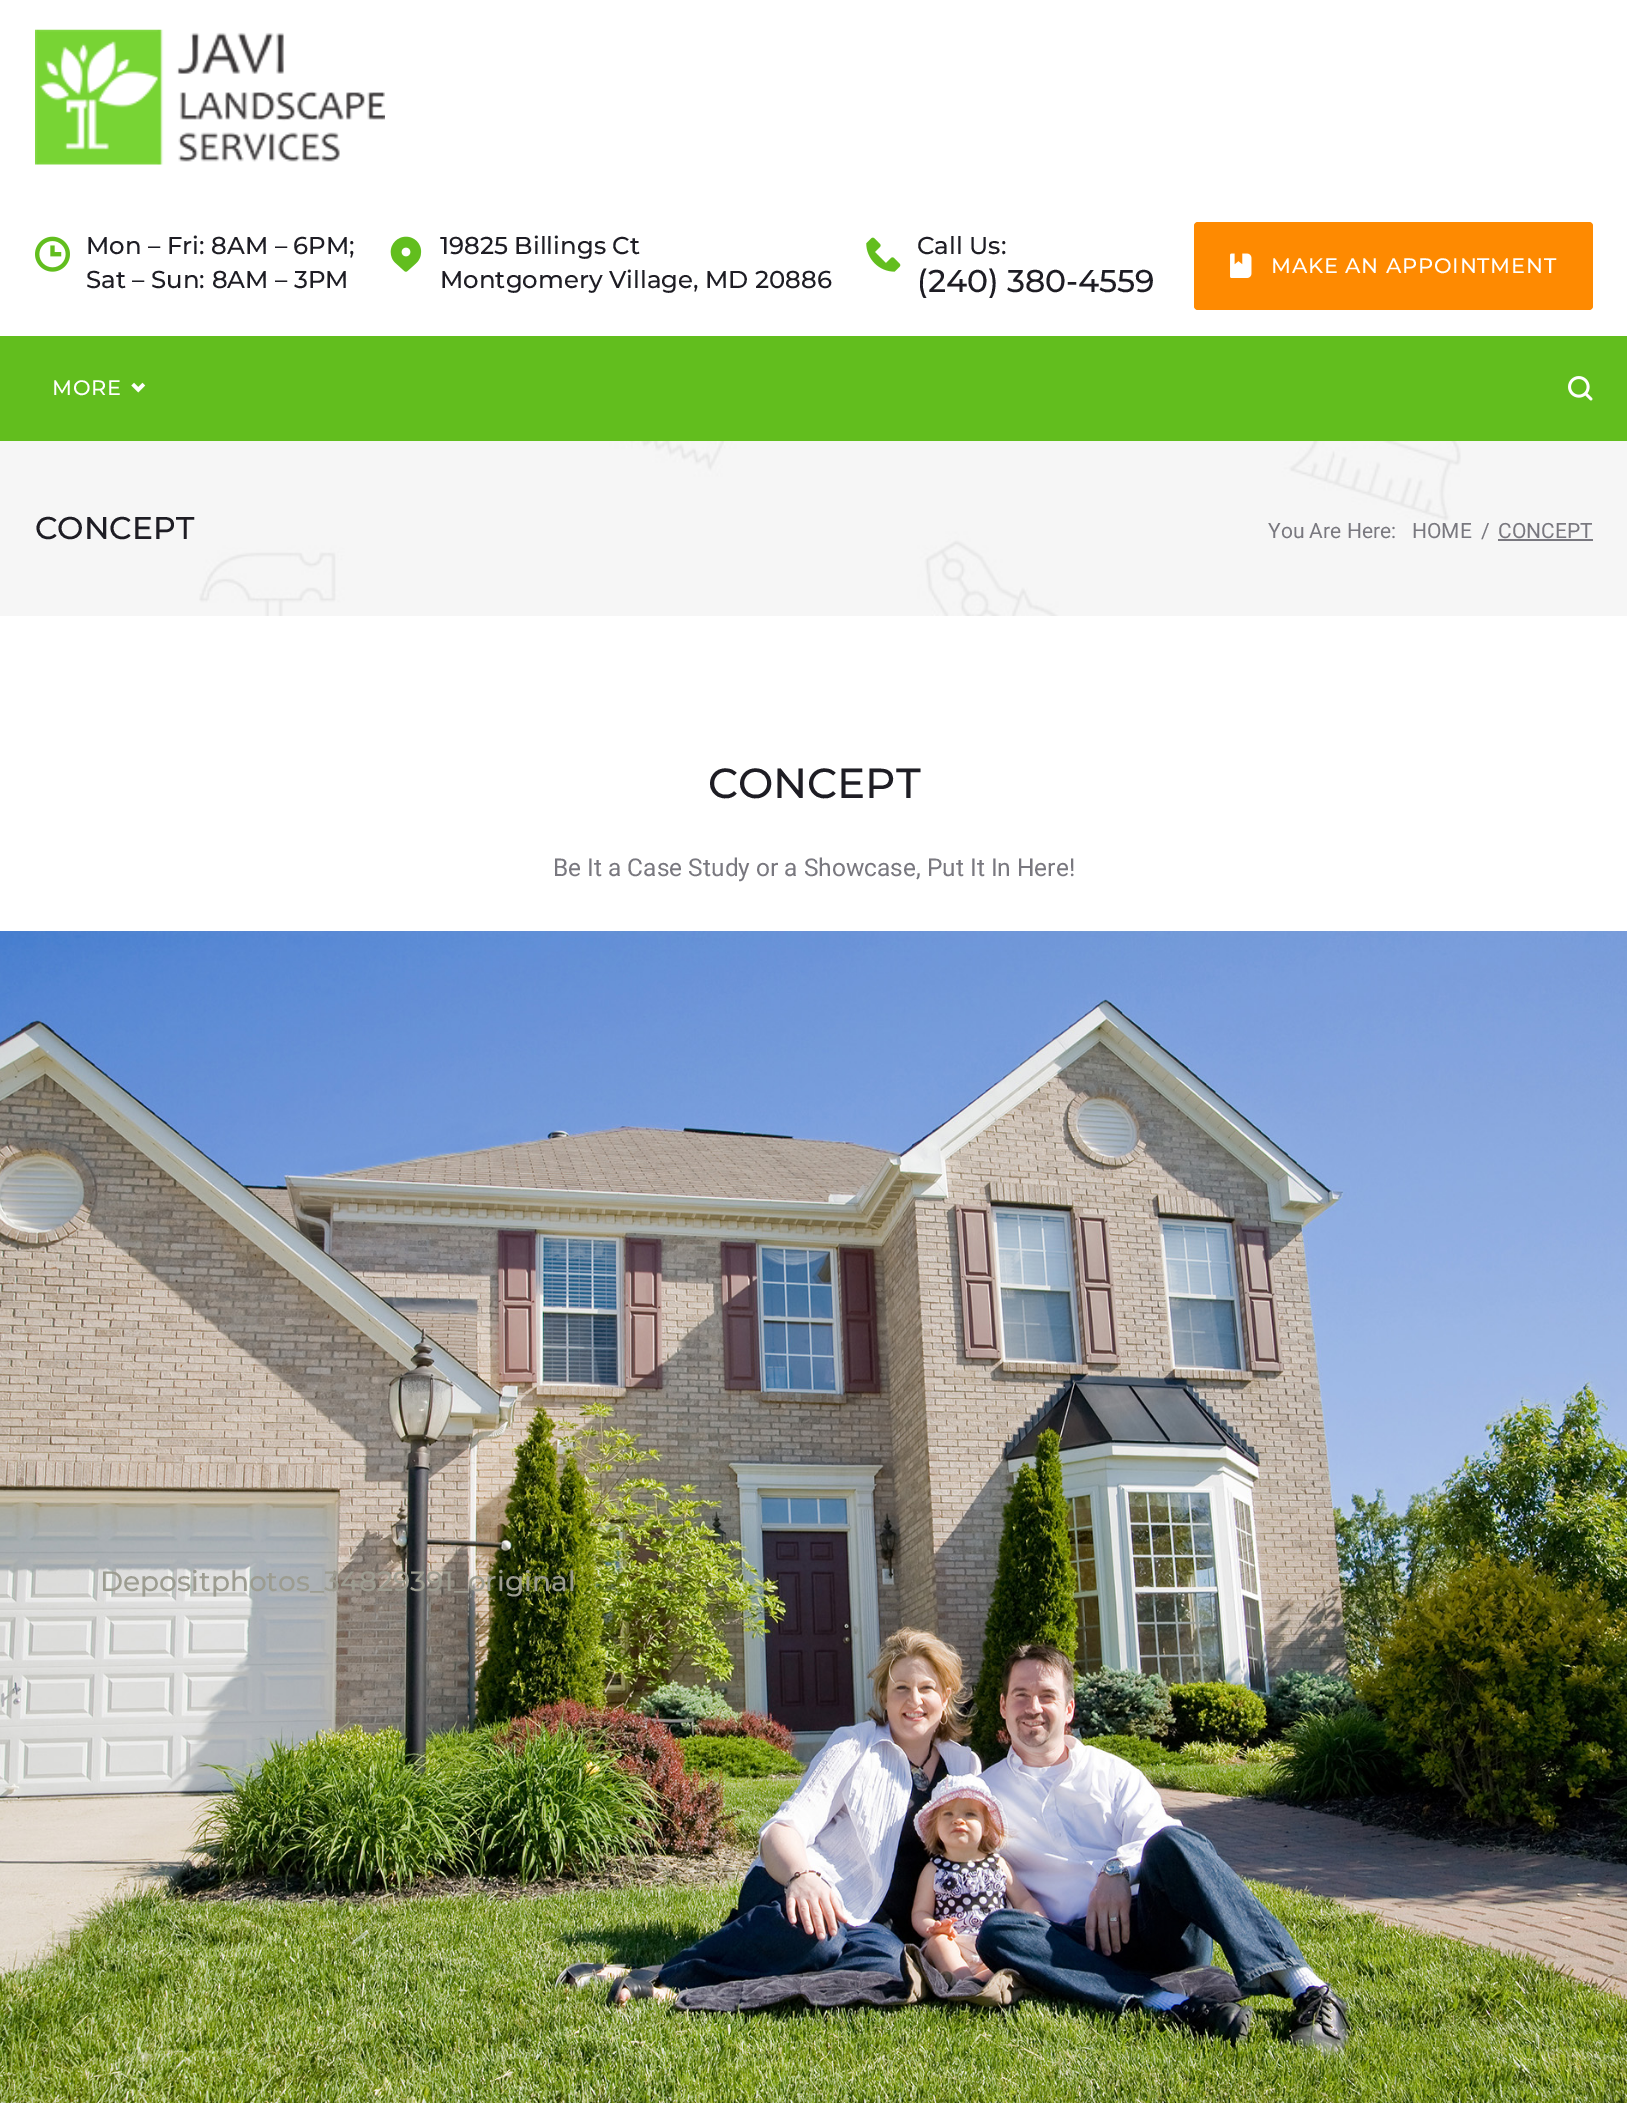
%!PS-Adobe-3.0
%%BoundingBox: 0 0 1627 2103
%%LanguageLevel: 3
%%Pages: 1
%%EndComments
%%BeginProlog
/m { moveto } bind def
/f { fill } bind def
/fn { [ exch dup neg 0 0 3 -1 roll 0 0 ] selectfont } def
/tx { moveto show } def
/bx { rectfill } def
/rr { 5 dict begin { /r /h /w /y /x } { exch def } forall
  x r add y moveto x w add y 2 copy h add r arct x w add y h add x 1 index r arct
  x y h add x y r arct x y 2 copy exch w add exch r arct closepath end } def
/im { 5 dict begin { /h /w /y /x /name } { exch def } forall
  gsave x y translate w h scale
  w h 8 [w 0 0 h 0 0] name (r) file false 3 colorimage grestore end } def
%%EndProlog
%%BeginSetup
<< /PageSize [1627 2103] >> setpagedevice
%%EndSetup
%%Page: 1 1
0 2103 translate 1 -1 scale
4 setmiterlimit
1 setgray
0 0 1627 2103 bx
(image0.raw) 35 29 350 136 im
(image1.raw) 35 236 35 36 im
/Montserrat-Thin 24.4 fn
0.118 0.114 0.141 setrgbcolor
(Mon – Fri: 8AM – 6PM;) 86 254 tx
(Sat – Sun: 8AM – 3PM) 86 288 tx
(image2.raw) 390 236 32 36 im
(19825 Billings Ct) 440 254 tx
(Montgomery Village, MD 20886) 440 288 tx
(image3.raw) 866 237 35 35 im
(Call Us:) 917 254 tx
/Montserrat-Thin 31.5 fn
(\(240\) 380-4559) 917 292 tx
0.996 0.541 0.004 setrgbcolor
1194 222 399 88 4 rr f
(image4.raw) 1230 253 22 25 im
/Montserrat-Thin 21 fn
1 setgray
1271 273 m 0.8 0 (MAKE AN APPOINTMENT) ashow
0.384 0.745 0.118 setrgbcolor
0 336 1627 105 bx
1 setgray
52 395 m 0.8 0 (MORE) ashow
(image5.raw) 131 382 15 11 im
(image6.raw) 1568 376 25 25 im
0.965 setgray
0 441 1627 175 bx
(image7.raw) 199 441 1262 175 im
/Montserrat-Thin 31.5 fn
0.118 0.114 0.141 setrgbcolor
(CONCEPT) 35 539 tx
/Roboto-Regular 21 fn
0.475 0.471 0.498 setrgbcolor
(You Are Here:) 1268 538 tx
(HOME) 1412 538 tx
(/) 1481 538 tx
(CONCEPT) 1498 538 tx
1498 539 95 2 bx
/Montserrat-Thin 42 fn
0.118 0.114 0.141 setrgbcolor
(CONCEPT) 708 798 tx
/Roboto-Regular 24.5 fn
0.475 0.471 0.498 setrgbcolor
(Be It a Case Study or a Showcase, Put It In Here!) 553 876 tx
(image8.raw) 0 931 1627 1172 im
/Montserrat-Thin 28 fn
0.612 0.612 0.565 setrgbcolor
(Depositphotos_34829391_original) 100 1591 tx
showpage
%%EOF
